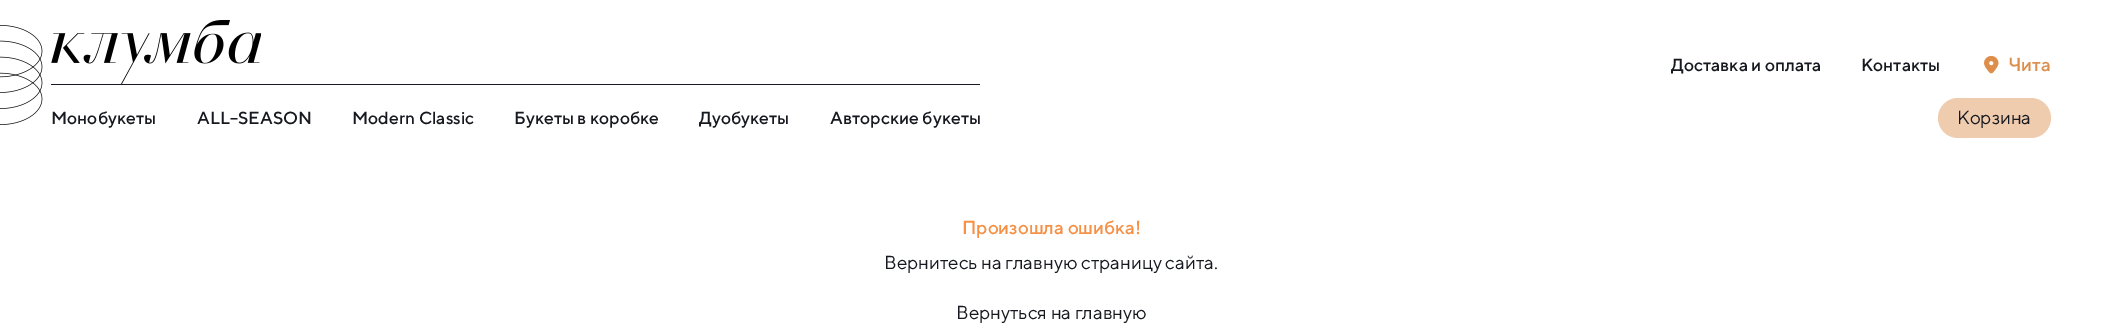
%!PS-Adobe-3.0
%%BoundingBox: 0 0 2102 323
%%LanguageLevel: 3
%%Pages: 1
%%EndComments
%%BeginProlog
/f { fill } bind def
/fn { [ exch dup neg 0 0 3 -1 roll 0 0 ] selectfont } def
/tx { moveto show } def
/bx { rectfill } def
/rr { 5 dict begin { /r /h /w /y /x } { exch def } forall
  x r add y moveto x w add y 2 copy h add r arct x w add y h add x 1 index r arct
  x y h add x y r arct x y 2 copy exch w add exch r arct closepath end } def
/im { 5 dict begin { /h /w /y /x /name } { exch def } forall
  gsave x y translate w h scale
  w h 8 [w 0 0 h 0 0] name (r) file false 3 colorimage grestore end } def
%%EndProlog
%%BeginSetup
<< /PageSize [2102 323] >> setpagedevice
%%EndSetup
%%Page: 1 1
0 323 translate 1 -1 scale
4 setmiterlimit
1 setgray
0 0 2102 323 bx
(image0.raw) 0 25 43 100 im
(image1.raw) 51 20 210 64 im
0.09 0.098 0.125 setrgbcolor
51 84 929 1 bx
/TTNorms-Medium 17.5 fn
(Монобукеты) 51 124 tx
(ALL–SEASON) 197 124 tx
(Modern Classic) 352 124 tx
(Букеты в коробке) 514 124 tx
(Дуобукеты) 699 124 tx
(Авторские букеты) 830 124 tx
(Доставка и оплата) 1671 71 tx
(Контакты) 1861 71 tx
(image2.raw) 1984 55 15 19 im
/TTNorms-Medium 18.75 fn
0.871 0.557 0.294 setrgbcolor
(Чита) 2008 71 tx
0.941 0.8 0.682 setrgbcolor
1938 98 113 40 20 rr f
/TTNorms-Regular 18.75 fn
0.09 0.098 0.125 setrgbcolor
(Корзина) 1957 124 tx
/TTNorms-Medium 18.75 fn
0.965 0.565 0.271 setrgbcolor
(Произошла ошибка!) 962 234 tx
/TTNorms-Regular 18.75 fn
0.09 0.098 0.125 setrgbcolor
(Вернитесь на главную страницу сайта.) 884 269 tx
(Вернуться на главную) 956 319 tx
showpage
%%EOF
